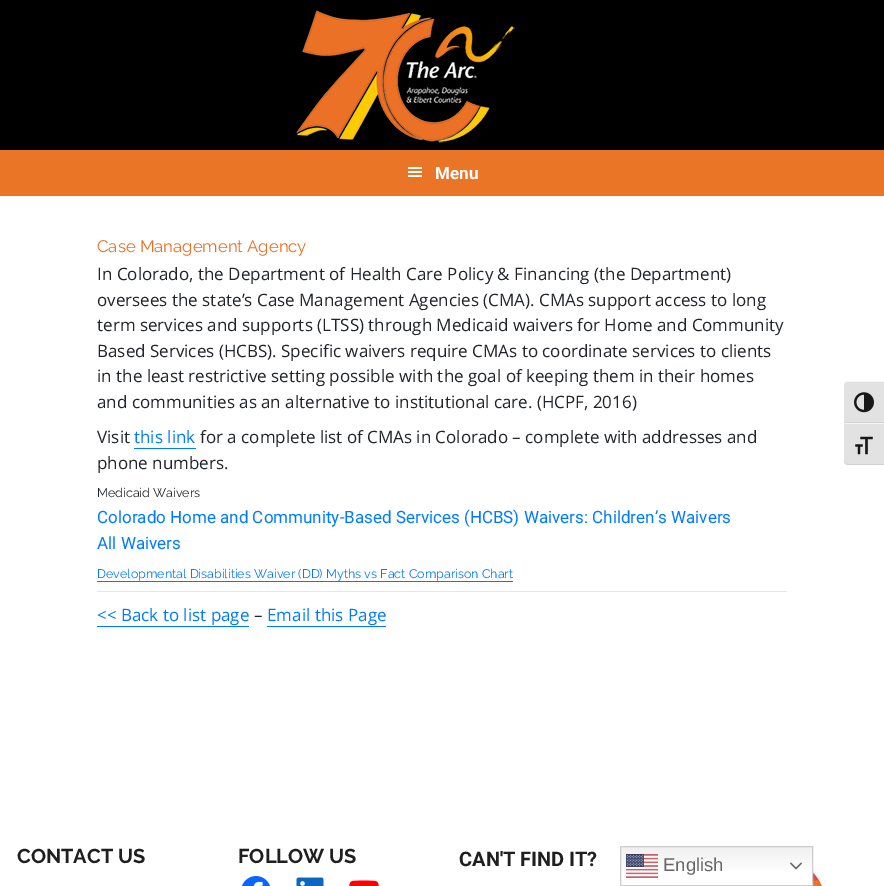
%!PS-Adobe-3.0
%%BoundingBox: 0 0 884 886
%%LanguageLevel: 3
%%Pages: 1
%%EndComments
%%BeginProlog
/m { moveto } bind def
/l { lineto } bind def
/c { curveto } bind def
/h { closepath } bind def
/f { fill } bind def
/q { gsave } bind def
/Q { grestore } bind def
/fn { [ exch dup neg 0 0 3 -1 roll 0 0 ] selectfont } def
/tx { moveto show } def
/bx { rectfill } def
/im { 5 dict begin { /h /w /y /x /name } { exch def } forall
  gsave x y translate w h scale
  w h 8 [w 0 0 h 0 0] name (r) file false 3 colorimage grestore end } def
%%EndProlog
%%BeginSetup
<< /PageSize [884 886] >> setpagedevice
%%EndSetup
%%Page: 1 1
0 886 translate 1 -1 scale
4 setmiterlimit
1 setgray
0 0 884 886 bx
0 setgray
0 0 884 150 bx
(image0.raw) 296 10 219 133 im
0.922 0.459 0.149 setrgbcolor
0 150 884 46 bx
(image1.raw) 408 167 14 10 im
/Roboto-Bold 17 fn
1 setgray
(Menu) 435 179 tx
/Raleway-Regular 16.7 fn
0.902 0.435 0.137 setrgbcolor
(Case Management Agency) 97 252 tx
/OpenSans-Regular 17 fn
0.129 0.145 0.161 setrgbcolor
(In Colorado, the Department of Health Care Policy & Financing \(the Department\)) 97 280 tx
(oversees the state’s Case Management Agencies \(CMA\). CMAs support access to long) 97 306 tx
(term services and supports \(LTSS\) through Medicaid waivers for Home and Community) 97 331 tx
(Based Services \(HCBS\). Specific waivers require CMAs to coordinate services to clients) 97 357 tx
(in the least restrictive setting possible with the goal of keeping them in their homes) 97 382 tx
(and communities as an alternative to institutional care. \(HCPF, 2016\)) 97 408 tx
(Visit) 97 443 tx
0 0.482 1 setrgbcolor
(this link) 134 443 tx
134 448 62 1 bx
0.129 0.145 0.161 setrgbcolor
(for a complete list of CMAs in Colorado – complete with addresses and) 200 443 tx
(phone numbers.) 97 469 tx
/Raleway-Regular 12.5 fn
(Medicaid Waivers) 97 497 tx
/Roboto-Regular 17 fn
0 0.482 1 setrgbcolor
(Colorado Home and Community-Based Services \(HCBS\) Waivers: Children’s Waivers) 97 523 tx
(All Waivers) 97 549 tx
/Raleway-Regular 12.5 fn
(Developmental Disabilities Waiver \(DD\) Myths vs Fact Comparison Chart) 97 578 tx
97 581 416 1 bx
0.902 setgray
97 591 690 1 bx
/OpenSans-Regular 17 fn
0 0.482 1 setrgbcolor
(<< Back to list page) 97 621 tx
97 626 152 1 bx
0.129 0.145 0.161 setrgbcolor
(–) 254 621 tx
0 0.482 1 setrgbcolor
(Email this Page) 267 621 tx
267 626 119 1 bx
/Raleway-Bold 20 fn
0.122 setgray
(CONTACT US) 17 863 tx
(FOLLOW US) 238 863 tx
(image2.raw) 242 876 28 10 im
(image3.raw) 296 877 28 9 im
(image4.raw) 349 880 30 6 im
/Roboto-Bold 20 fn
(CAN'T FIND IT?) 459 866 tx
(image5.raw) 813 858 13 28 im
0.886 setgray
848 381 m 884 381 l 884 423 l 844 423 l 844 385 l 844 383 846 381 848 381 c h f
0.961 setgray
848 382 m 884 382 l 884 381 l 848 381 l 846 381 844 383 844 385 c 844 383 846 382 848 382 c h f
0.824 setgray
844 422 40 1 bx
(image6.raw) 854 392 20 21 im
0.886 setgray
844 423 m 884 423 l 884 465 l 848 465 l 846 465 844 463 844 461 c h f
0.961 setgray
844 423 40 1 bx
0.824 setgray
884 465 m 884 464 l 848 464 l 846 464 844 463 844 461 c 844 463 846 465 848 465 c h f
(image7.raw) 855 436 18 19 im
q 621 847 m 812 847 l 812 870 l 621 870 l h clip newpath
<< /ShadingType 2 /ColorSpace /DeviceRGB /Coords [717 846 717 886] /Extend [true true] /Function << /FunctionType 3 /Domain [0 1] /Functions [<< /FunctionType 2 /Domain [0 1] /C0 [0.937 0.937 0.937] /C1 [1 1 1] /N 1 >> << /FunctionType 2 /Domain [0 1] /C0 [1 1 1] /C1 [1 1 1] /N 1 >>] /Bounds [0.7] /Encode [0 1 0 1] >> >> shfill Q
0.8 setgray
620.5 846.5 192 39 rectstroke
(image8.raw) 626 854 32 24 im
/LiberationSans-Regular 18.5 fn
0.4 setgray
(English) 663 871 tx
(image9.raw) 790 862 12 8 im
showpage
%%EOF
